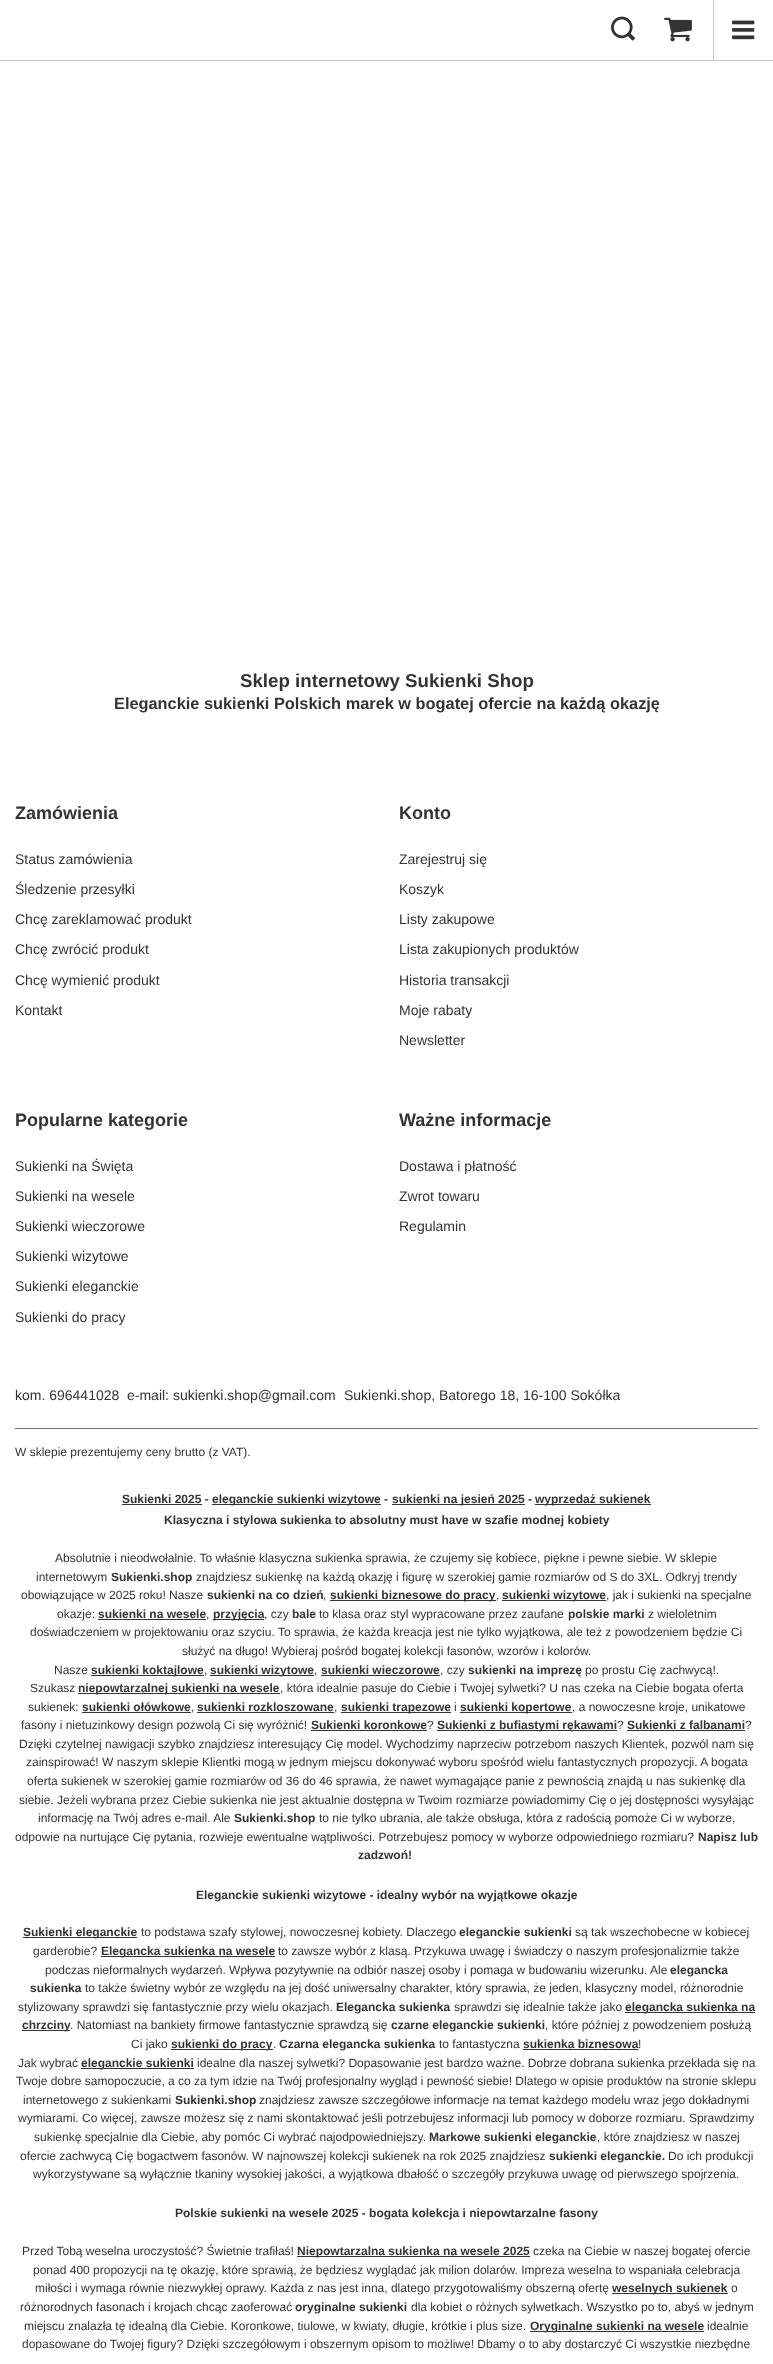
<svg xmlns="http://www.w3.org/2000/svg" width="773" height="2364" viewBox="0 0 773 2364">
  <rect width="100%" height="100%" fill="#ffffff"/>
  <rect x="0" y="60" width="773" height="1" fill="#c4c7c8"/>
  <image x="611" y="16" width="24" height="25" href="img1.png"/>
  <image x="664" y="17" width="28" height="25" href="img2.png"/>
  <rect x="713" y="0" width="1" height="60" fill="#c4c7c8"/>
  <image x="732" y="20" width="23" height="20" href="img3.png"/>
  <text x="240" y="687" font-family="Liberation Sans" font-size="18.7" font-weight="bold" fill="#333333">Sklep internetowy Sukienki Shop</text>
  <text x="114" y="709" font-family="Liberation Sans" font-size="16.35" font-weight="bold" fill="#333333">Eleganckie sukienki Polskich marek w bogatej ofercie na każdą okazję</text>
  <text x="15" y="819" font-family="Liberation Sans" font-size="18" font-weight="bold" fill="#333333">Zamówienia</text>
  <text x="15" y="864" font-family="Liberation Sans" font-size="14" fill="#333333">Status zamówienia</text>
  <text x="15" y="894" font-family="Liberation Sans" font-size="14" fill="#333333">Śledzenie przesyłki</text>
  <text x="15" y="924" font-family="Liberation Sans" font-size="14" fill="#333333">Chcę zareklamować produkt</text>
  <text x="15" y="954" font-family="Liberation Sans" font-size="14" fill="#333333">Chcę zwrócić produkt</text>
  <text x="15" y="985" font-family="Liberation Sans" font-size="14" fill="#333333">Chcę wymienić produkt</text>
  <text x="15" y="1015" font-family="Liberation Sans" font-size="14" fill="#333333">Kontakt</text>
  <text x="399" y="819" font-family="Liberation Sans" font-size="18" font-weight="bold" fill="#333333">Konto</text>
  <text x="399" y="864" font-family="Liberation Sans" font-size="14" fill="#333333">Zarejestruj się</text>
  <text x="399" y="894" font-family="Liberation Sans" font-size="14" fill="#333333">Koszyk</text>
  <text x="399" y="924" font-family="Liberation Sans" font-size="14" fill="#333333">Listy zakupowe</text>
  <text x="399" y="954" font-family="Liberation Sans" font-size="14" fill="#333333">Lista zakupionych produktów</text>
  <text x="399" y="985" font-family="Liberation Sans" font-size="14" fill="#333333">Historia transakcji</text>
  <text x="399" y="1015" font-family="Liberation Sans" font-size="14" fill="#333333">Moje rabaty</text>
  <text x="399" y="1045" font-family="Liberation Sans" font-size="14" fill="#333333">Newsletter</text>
  <text x="15" y="1126" font-family="Liberation Sans" font-size="18" font-weight="bold" fill="#333333">Popularne kategorie</text>
  <text x="15" y="1171" font-family="Liberation Sans" font-size="14" fill="#333333">Sukienki na Święta</text>
  <text x="15" y="1201" font-family="Liberation Sans" font-size="14" fill="#333333">Sukienki na wesele</text>
  <text x="15" y="1231" font-family="Liberation Sans" font-size="14" fill="#333333">Sukienki wieczorowe</text>
  <text x="15" y="1261" font-family="Liberation Sans" font-size="14" fill="#333333">Sukienki wizytowe</text>
  <text x="15" y="1291" font-family="Liberation Sans" font-size="14" fill="#333333">Sukienki eleganckie</text>
  <text x="15" y="1322" font-family="Liberation Sans" font-size="14" fill="#333333">Sukienki do pracy</text>
  <text x="399" y="1126" font-family="Liberation Sans" font-size="18" font-weight="bold" fill="#333333">Ważne informacje</text>
  <text x="399" y="1171" font-family="Liberation Sans" font-size="14" fill="#333333">Dostawa i płatność</text>
  <text x="399" y="1201" font-family="Liberation Sans" font-size="14" fill="#333333">Zwrot towaru</text>
  <text x="399" y="1231" font-family="Liberation Sans" font-size="14" fill="#333333">Regulamin</text>
  <rect x="15" y="1428" width="743" height="1" fill="#6b7785"/>
  <text x="15" y="1400" font-family="Liberation Sans" font-size="14" fill="#333333">kom. 696441028</text>
  <text x="127" y="1400" font-family="Liberation Sans" font-size="14" fill="#333333">e-mail: sukienki.shop@gmail.com</text>
  <text x="344" y="1400" font-family="Liberation Sans" font-size="14" fill="#333333">Sukienki.shop, Batorego 18, 16-100 Sokółka</text>
  <text x="15" y="1456" font-family="Liberation Sans" font-size="12" fill="#333333">W sklepie prezentujemy ceny brutto (z VAT).</text>
  <text x="122" y="1503" font-family="Liberation Sans" font-size="12" font-weight="bold" fill="#333333">Sukienki 2025 -</text>
  <rect x="122" y="1504" width="80" height="1" fill="#333333"/>
  <rect x="212" y="1504" width="169" height="1" fill="#333333"/>
  <text x="212" y="1503" font-family="Liberation Sans" font-size="12" font-weight="bold" fill="#333333">eleganckie sukienki wizytowe -</text>
  <rect x="392" y="1504" width="133" height="1" fill="#333333"/>
  <text x="392" y="1503" font-family="Liberation Sans" font-size="12" font-weight="bold" fill="#333333">sukienki na jesień 2025 -</text>
  <rect x="535" y="1504" width="116" height="1" fill="#333333"/>
  <text x="535" y="1503" font-family="Liberation Sans" font-size="12" font-weight="bold" fill="#333333">wyprzedaż sukienek</text>
  <text x="164" y="1524" font-family="Liberation Sans" font-size="12" font-weight="bold" fill="#333333">Klasyczna i stylowa sukienka to absolutny must have w szafie modnej kobiety</text>
  <text x="55" y="1562" font-family="Liberation Sans" font-size="12" fill="#333333">Absolutnie i nieodwołalnie. To właśnie klasyczna sukienka sprawia, że czujemy się kobiece, piękne i pewne siebie. W sklepie</text>
  <text x="36" y="1581" font-family="Liberation Sans" font-size="12" fill="#333333">internetowym</text>
  <text x="111" y="1581" font-family="Liberation Sans" font-size="12" font-weight="bold" fill="#333333">Sukienki.shop</text>
  <text x="196" y="1581" font-family="Liberation Sans" font-size="12" fill="#333333">znajdziesz sukienkę na każdą okazję i figurę w szerokiej gamie rozmiarów od S do 3XL. Odkryj trendy</text>
  <text x="21" y="1599" font-family="Liberation Sans" font-size="12" fill="#333333">obowiązujące w 2025 roku! Nasze</text>
  <text x="207" y="1599" font-family="Liberation Sans" font-size="12" font-weight="bold" fill="#333333">sukienki na co dzień</text>
  <text x="323" y="1599" font-family="Liberation Sans" font-size="12" fill="#333333">,</text>
  <rect x="330" y="1600" width="166" height="1" fill="#333333"/>
  <text x="330" y="1599" font-family="Liberation Sans" font-size="12" font-weight="bold" fill="#333333">sukienki biznesowe do pracy</text>
  <text x="496" y="1599" font-family="Liberation Sans" font-size="12" fill="#333333">,</text>
  <rect x="502" y="1600" width="104" height="1" fill="#333333"/>
  <text x="502" y="1599" font-family="Liberation Sans" font-size="12" font-weight="bold" fill="#333333">sukienki wizytowe</text>
  <text x="606" y="1599" font-family="Liberation Sans" font-size="12" fill="#333333">, jak i sukienki na specjalne</text>
  <text x="57" y="1618" font-family="Liberation Sans" font-size="12" fill="#333333">okazje:</text>
  <text x="98" y="1618" font-family="Liberation Sans" font-size="12" font-weight="bold" fill="#333333">sukienki na wesele</text>
  <text x="206" y="1618" font-family="Liberation Sans" font-size="12" fill="#333333">,</text>
  <rect x="98" y="1619" width="108" height="1" fill="#333333"/>
  <rect x="213" y="1619" width="51" height="1" fill="#333333"/>
  <text x="213" y="1618" font-family="Liberation Sans" font-size="12" font-weight="bold" fill="#333333">przyjęcia</text>
  <text x="264" y="1618" font-family="Liberation Sans" font-size="12" fill="#333333">, czy</text>
  <text x="292" y="1618" font-family="Liberation Sans" font-size="12" font-weight="bold" fill="#333333">bale</text>
  <text x="319" y="1618" font-family="Liberation Sans" font-size="12" fill="#333333">to klasa oraz styl wypracowane przez zaufane</text>
  <text x="568" y="1618" font-family="Liberation Sans" font-size="12" font-weight="bold" fill="#333333">polskie marki</text>
  <text x="648" y="1618" font-family="Liberation Sans" font-size="12" fill="#333333">z wieloletnim</text>
  <text x="30" y="1636" font-family="Liberation Sans" font-size="12" fill="#333333">doświadczeniem w projektowaniu oraz szyciu. To sprawia, że każda kreacja jest nie tylko wyjątkowa, ale też z powodzeniem będzie Ci</text>
  <text x="182" y="1655" font-family="Liberation Sans" font-size="12" fill="#333333">służyć na długo! Wybieraj pośród bogatej kolekcji fasonów, wzorów i kolorów.</text>
  <text x="54" y="1674" font-family="Liberation Sans" font-size="12" fill="#333333">Nasze</text>
  <rect x="91" y="1675" width="113" height="1" fill="#333333"/>
  <text x="91" y="1674" font-family="Liberation Sans" font-size="12" font-weight="bold" fill="#333333">sukienki koktajlowe</text>
  <text x="204" y="1674" font-family="Liberation Sans" font-size="12" fill="#333333">,</text>
  <rect x="210" y="1675" width="104" height="1" fill="#333333"/>
  <text x="210" y="1674" font-family="Liberation Sans" font-size="12" font-weight="bold" fill="#333333">sukienki wizytowe</text>
  <text x="314" y="1674" font-family="Liberation Sans" font-size="12" fill="#333333">,</text>
  <rect x="321" y="1675" width="119" height="1" fill="#333333"/>
  <text x="321" y="1674" font-family="Liberation Sans" font-size="12" font-weight="bold" fill="#333333">sukienki wieczorowe</text>
  <text x="440" y="1674" font-family="Liberation Sans" font-size="12" fill="#333333">, czy</text>
  <text x="468" y="1674" font-family="Liberation Sans" font-size="12" font-weight="bold" fill="#333333">sukienki na imprezę</text>
  <text x="585" y="1674" font-family="Liberation Sans" font-size="12" fill="#333333">po prostu Cię zachwycą!.</text>
  <text x="30" y="1692" font-family="Liberation Sans" font-size="12" fill="#333333">Szukasz</text>
  <rect x="78" y="1693" width="202" height="1" fill="#333333"/>
  <text x="78" y="1692" font-family="Liberation Sans" font-size="12" font-weight="bold" fill="#333333">niepowtarzalnej sukienki na wesele</text>
  <text x="280" y="1692" font-family="Liberation Sans" font-size="12" fill="#333333">, która idealnie pasuje do Ciebie i Twojej sylwetki? U nas czeka na Ciebie bogata oferta</text>
  <text x="28" y="1711" font-family="Liberation Sans" font-size="12" fill="#333333">sukienek:</text>
  <text x="82" y="1711" font-family="Liberation Sans" font-size="12" font-weight="bold" fill="#333333">sukienki ołówkowe</text>
  <text x="191" y="1711" font-family="Liberation Sans" font-size="12" fill="#333333">,</text>
  <rect x="82" y="1712" width="109" height="1" fill="#333333"/>
  <text x="197" y="1711" font-family="Liberation Sans" font-size="12" font-weight="bold" fill="#333333">sukienki rozkloszowane</text>
  <text x="334" y="1711" font-family="Liberation Sans" font-size="12" fill="#333333">,</text>
  <rect x="197" y="1712" width="137" height="1" fill="#333333"/>
  <rect x="341" y="1712" width="110" height="1" fill="#333333"/>
  <text x="341" y="1711" font-family="Liberation Sans" font-size="12" font-weight="bold" fill="#333333">sukienki trapezowe</text>
  <text x="454" y="1711" font-family="Liberation Sans" font-size="12" fill="#333333">i</text>
  <rect x="460" y="1712" width="112" height="1" fill="#333333"/>
  <text x="460" y="1711" font-family="Liberation Sans" font-size="12" font-weight="bold" fill="#333333">sukienki kopertowe</text>
  <text x="572" y="1711" font-family="Liberation Sans" font-size="12" fill="#333333">, a nowoczesne kroje, unikatowe</text>
  <text x="21" y="1729" font-family="Liberation Sans" font-size="12" fill="#333333">fasony i nietuzinkowy design pozwolą Ci się wyróżnić!</text>
  <text x="311" y="1729" font-family="Liberation Sans" font-size="12" font-weight="bold" fill="#333333">Sukienki koronkowe</text>
  <rect x="311" y="1730" width="116" height="1" fill="#333333"/>
  <text x="427" y="1729" font-family="Liberation Sans" font-size="12" fill="#333333">?</text>
  <rect x="437" y="1730" width="180" height="1" fill="#333333"/>
  <text x="437" y="1729" font-family="Liberation Sans" font-size="12" font-weight="bold" fill="#333333">Sukienki z bufiastymi rękawami</text>
  <text x="617" y="1729" font-family="Liberation Sans" font-size="12" fill="#333333">?</text>
  <text x="627" y="1729" font-family="Liberation Sans" font-size="12" font-weight="bold" fill="#333333">Sukienki z falbanami</text>
  <rect x="627" y="1730" width="118" height="1" fill="#333333"/>
  <text x="745" y="1729" font-family="Liberation Sans" font-size="12" fill="#333333">?</text>
  <text x="19" y="1748" font-family="Liberation Sans" font-size="12" fill="#333333">Dzięki czytelnej nawigacji szybko znajdziesz interesujący Cię model. Wychodzimy naprzeciw potrzebom naszych Klientek, pozwól nam się</text>
  <text x="26" y="1766" font-family="Liberation Sans" font-size="12" fill="#333333">zainspirować! W naszym sklepie Klientki mogą w jednym miejscu dokonywać wyboru spośród wielu fantastycznych propozycji. A bogata</text>
  <text x="27" y="1785" font-family="Liberation Sans" font-size="12" fill="#333333">oferta sukienek w szerokiej gamie rozmiarów od 36 do 46 sprawia, że nawet wymagające panie z pewnością znajdą u nas sukienkę dla</text>
  <text x="19" y="1804" font-family="Liberation Sans" font-size="12" fill="#333333">siebie. Jeżeli wybrana przez Ciebie sukienka nie jest aktualnie dostępna w Twoim rozmiarze powiadomimy Cię o jej dostępności wysyłając</text>
  <text x="38" y="1822" font-family="Liberation Sans" font-size="12" fill="#333333">informację na Twój adres e-mail. Ale</text>
  <text x="234" y="1822" font-family="Liberation Sans" font-size="12" font-weight="bold" fill="#333333">Sukienki.shop</text>
  <text x="319" y="1822" font-family="Liberation Sans" font-size="12" fill="#333333">to nie tylko ubrania, ale także obsługa, która z radością pomoże Ci w wyborze,</text>
  <text x="15" y="1841" font-family="Liberation Sans" font-size="12" fill="#333333">odpowie na nurtujące Cię pytania, rozwieje ewentualne wątpliwości. Potrzebujesz pomocy w wyborze odpowiedniego rozmiaru?</text>
  <text x="698" y="1841" font-family="Liberation Sans" font-size="12" font-weight="bold" fill="#333333">Napisz lub</text>
  <text x="358" y="1859" font-family="Liberation Sans" font-size="12" font-weight="bold" fill="#333333">zadzwoń!</text>
  <text x="196" y="1899" font-family="Liberation Sans" font-size="12" font-weight="bold" fill="#333333">Eleganckie sukienki wizytowe - idealny wybór na wyjątkowe okazje</text>
  <rect x="23" y="1937" width="114" height="1" fill="#333333"/>
  <text x="23" y="1936" font-family="Liberation Sans" font-size="12" font-weight="bold" fill="#333333">Sukienki eleganckie</text>
  <text x="141" y="1936" font-family="Liberation Sans" font-size="12" fill="#333333">to podstawa szafy stylowej, nowoczesnej kobiety. Dlaczego</text>
  <text x="459" y="1936" font-family="Liberation Sans" font-size="12" font-weight="bold" fill="#333333">eleganckie sukienki</text>
  <text x="575" y="1936" font-family="Liberation Sans" font-size="12" fill="#333333">są tak wszechobecne w kobiecej</text>
  <text x="33" y="1955" font-family="Liberation Sans" font-size="12" fill="#333333">garderobie?</text>
  <rect x="101" y="1956" width="174" height="1" fill="#333333"/>
  <text x="101" y="1955" font-family="Liberation Sans" font-size="12" font-weight="bold" fill="#333333">Elegancka sukienka na wesele</text>
  <text x="278" y="1955" font-family="Liberation Sans" font-size="12" fill="#333333">to zawsze wybór z klasą. Przykuwa uwagę i świadczy o naszym profesjonalizmie także</text>
  <text x="45" y="1974" font-family="Liberation Sans" font-size="12" fill="#333333">podczas nieformalnych wydarzeń. Wpływa pozytywnie na odbiór naszej osoby i pomaga w budowaniu wizerunku. Ale</text>
  <text x="670" y="1974" font-family="Liberation Sans" font-size="12" font-weight="bold" fill="#333333">elegancka</text>
  <text x="30" y="1992" font-family="Liberation Sans" font-size="12" font-weight="bold" fill="#333333">sukienka</text>
  <text x="85" y="1992" font-family="Liberation Sans" font-size="12" fill="#333333">to także świetny wybór ze względu na jej dość uniwersalny charakter, który sprawia, że jeden, klasyczny model, różnorodnie</text>
  <text x="18" y="2011" font-family="Liberation Sans" font-size="12" fill="#333333">stylizowany sprawdzi się fantastycznie przy wielu okazjach.</text>
  <text x="336" y="2011" font-family="Liberation Sans" font-size="12" font-weight="bold" fill="#333333">Elegancka sukienka</text>
  <text x="454" y="2011" font-family="Liberation Sans" font-size="12" fill="#333333">sprawdzi się idealnie także jako</text>
  <rect x="625" y="2012" width="130" height="1" fill="#333333"/>
  <text x="625" y="2011" font-family="Liberation Sans" font-size="12" font-weight="bold" fill="#333333">elegancka sukienka na</text>
  <rect x="22" y="2030" width="48" height="1" fill="#333333"/>
  <text x="22" y="2029" font-family="Liberation Sans" font-size="12" font-weight="bold" fill="#333333">chrzciny</text>
  <text x="70" y="2029" font-family="Liberation Sans" font-size="12" fill="#333333">. Natomiast na bankiety firmowe fantastycznie sprawdzą się</text>
  <text x="391" y="2029" font-family="Liberation Sans" font-size="12" font-weight="bold" fill="#333333">czarne eleganckie sukienki</text>
  <text x="545" y="2029" font-family="Liberation Sans" font-size="12" fill="#333333">, które później z powodzeniem posłużą</text>
  <text x="131" y="2048" font-family="Liberation Sans" font-size="12" fill="#333333">Ci jako</text>
  <rect x="171" y="2049" width="102" height="1" fill="#333333"/>
  <text x="171" y="2048" font-family="Liberation Sans" font-size="12" font-weight="bold" fill="#333333">sukienki do pracy</text>
  <text x="273" y="2048" font-family="Liberation Sans" font-size="12" fill="#333333">.</text>
  <text x="279" y="2048" font-family="Liberation Sans" font-size="12" font-weight="bold" fill="#333333">Czarna elegancka sukienka</text>
  <text x="439" y="2048" font-family="Liberation Sans" font-size="12" fill="#333333">to fantastyczna</text>
  <text x="523" y="2048" font-family="Liberation Sans" font-size="12" font-weight="bold" fill="#333333">sukienka biznesowa</text>
  <rect x="523" y="2049" width="115" height="1" fill="#333333"/>
  <text x="638" y="2048" font-family="Liberation Sans" font-size="12" fill="#333333">!</text>
  <text x="18" y="2067" font-family="Liberation Sans" font-size="12" fill="#333333">Jak wybrać</text>
  <rect x="81" y="2068" width="113" height="1" fill="#333333"/>
  <text x="81" y="2067" font-family="Liberation Sans" font-size="12" font-weight="bold" fill="#333333">eleganckie sukienki</text>
  <text x="197" y="2067" font-family="Liberation Sans" font-size="12" fill="#333333">idealne dla naszej sylwetki? Dopasowanie jest bardzo ważne. Dobrze dobrana sukienka przekłada się na</text>
  <text x="16" y="2085" font-family="Liberation Sans" font-size="12" fill="#333333">Twoje dobre samopoczucie, a co za tym idzie na Twój profesjonalny wygląd i pewność siebie! Dlatego w opisie produktów na stronie sklepu</text>
  <text x="23" y="2104" font-family="Liberation Sans" font-size="12" fill="#333333">internetowego z sukienkami</text>
  <text x="175" y="2104" font-family="Liberation Sans" font-size="12" font-weight="bold" fill="#333333">Sukienki.shop</text>
  <text x="259" y="2104" font-family="Liberation Sans" font-size="12" fill="#333333">znajdziesz zawsze szczegółowe informacje na temat każdego modelu wraz jego dokładnymi</text>
  <text x="18" y="2122" font-family="Liberation Sans" font-size="12" fill="#333333">wymiarami. Co więcej, zawsze możesz się z nami skontaktować jeśli potrzebujesz informacji lub pomocy w doborze rozmiaru. Sprawdzimy</text>
  <text x="34" y="2141" font-family="Liberation Sans" font-size="12" fill="#333333">sukienkę specjalnie dla Ciebie, aby pomóc Ci wybrać najodpowiedniejszy.</text>
  <text x="429" y="2141" font-family="Liberation Sans" font-size="12" font-weight="bold" fill="#333333">Markowe sukienki eleganckie</text>
  <text x="597" y="2141" font-family="Liberation Sans" font-size="12" fill="#333333">, które znajdziesz w naszej</text>
  <text x="20" y="2160" font-family="Liberation Sans" font-size="12" fill="#333333">ofercie zachwycą Cię bogactwem fasonów. W najnowszej kolekcji sukienek na rok 2025 znajdziesz</text>
  <text x="549" y="2160" font-family="Liberation Sans" font-size="12" font-weight="bold" fill="#333333">sukienki eleganckie.</text>
  <text x="668" y="2160" font-family="Liberation Sans" font-size="12" fill="#333333">Do ich produkcji</text>
  <text x="33" y="2178" font-family="Liberation Sans" font-size="12" fill="#333333">wykorzystywane są wyłącznie tkaniny wysokiej jakości, a wyjątkowa dbałość o szczegóły przykuwa uwagę od pierwszego spojrzenia.</text>
  <text x="175" y="2217" font-family="Liberation Sans" font-size="12" font-weight="bold" fill="#333333">Polskie sukienki na wesele 2025 - bogata kolekcja i niepowtarzalne fasony</text>
  <text x="22" y="2255" font-family="Liberation Sans" font-size="12" fill="#333333">Przed Tobą weselna uroczystość? Świetnie trafiłaś!</text>
  <rect x="297" y="2256" width="233" height="1" fill="#333333"/>
  <text x="297" y="2255" font-family="Liberation Sans" font-size="12" font-weight="bold" fill="#333333">Niepowtarzalna sukienka na wesele 2025</text>
  <text x="533" y="2255" font-family="Liberation Sans" font-size="12" fill="#333333">czeka na Ciebie w naszej bogatej ofercie</text>
  <text x="33" y="2274" font-family="Liberation Sans" font-size="12" fill="#333333">ponad 400 propozycji na tę okazję, które sprawią, że będziesz wyglądać jak milion dolarów. Impreza weselna to wspaniała celebracja</text>
  <text x="35" y="2292" font-family="Liberation Sans" font-size="12" fill="#333333">miłości i wymaga równie niezwykłej oprawy. Każda z nas jest inna, dlatego przygotowaliśmy obszerną ofertę</text>
  <rect x="612" y="2293" width="116" height="1" fill="#333333"/>
  <text x="612" y="2292" font-family="Liberation Sans" font-size="12" font-weight="bold" fill="#333333">weselnych sukienek</text>
  <text x="731" y="2292" font-family="Liberation Sans" font-size="12" fill="#333333">o</text>
  <text x="20" y="2311" font-family="Liberation Sans" font-size="12" fill="#333333">różnorodnych fasonach i krojach chcąc zaoferować</text>
  <text x="295" y="2311" font-family="Liberation Sans" font-size="12" font-weight="bold" fill="#333333">oryginalne sukienki</text>
  <text x="411" y="2311" font-family="Liberation Sans" font-size="12" fill="#333333">dla kobiet o różnych sylwetkach. Wszystko po to, abyś w jednym</text>
  <text x="24" y="2330" font-family="Liberation Sans" font-size="12" fill="#333333">miejscu znalazła tę idealną dla Ciebie. Koronkowe, tiulowe, w kwiaty, długie, krótkie i plus size.</text>
  <rect x="530" y="2331" width="174" height="1" fill="#333333"/>
  <text x="530" y="2330" font-family="Liberation Sans" font-size="12" font-weight="bold" fill="#333333">Oryginalne sukienki na wesele</text>
  <text x="707" y="2330" font-family="Liberation Sans" font-size="12" fill="#333333">idealnie</text>
  <text x="22" y="2348" font-family="Liberation Sans" font-size="12" fill="#333333">dopasowane do Twojej figury? Dzięki szczegółowym i obszernym opisom to możliwe! Dbamy o to aby dostarczyć Ci wszystkie niezbędne</text>
</svg>
